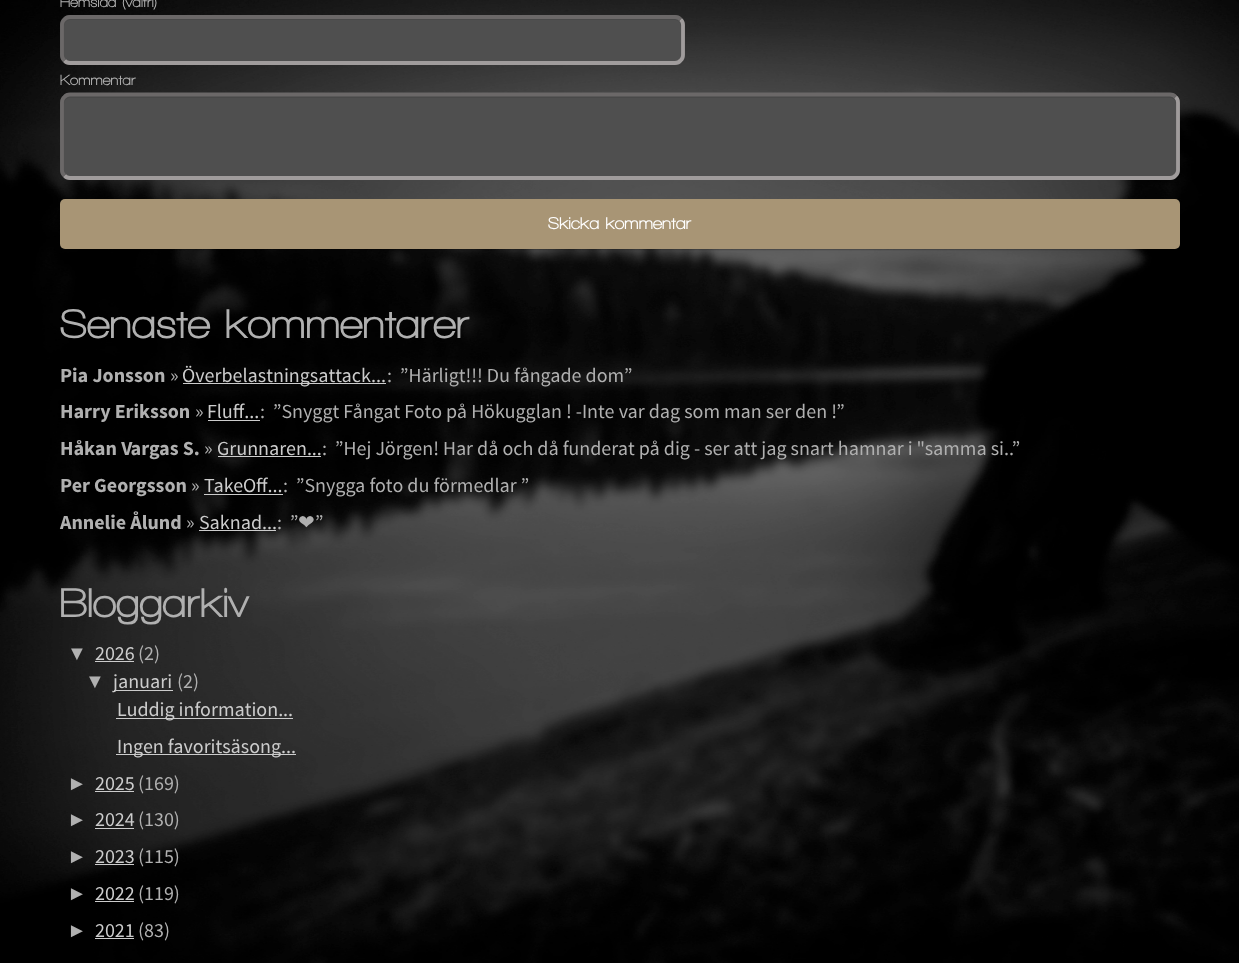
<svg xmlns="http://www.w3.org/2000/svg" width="1239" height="963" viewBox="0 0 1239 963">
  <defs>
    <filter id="blur1" x="-50%" y="-200%" width="200%" height="500%"><feGaussianBlur stdDeviation="1"/></filter>
  </defs>
  <rect width="100%" height="100%" fill="#ffffff"/>
  <image x="0" y="0" width="1239" height="963" href="img1.png"/>
  <text x="60" y="7" font-family="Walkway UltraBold" font-size="15" font-weight="800" fill="#b0b0b0">Hemsida (valfri)</text>
  <rect x="60" y="15" width="625" height="50" rx="10" fill="#4f4f4f"/>
  <path d="M70 20H675C678 20 681 23 681 26C681 22 679 19 675 19H70C66 19 64 22 64 26C64 23 67 20 70 20Z" fill="#494949"/>
  <path d="M680.5 19.5C682.5 21 683 23 683 25V55C683 57 682.5 59 680.5 60.5C679 62.5 677 63 675 63H70C68 63 66 62.5 64.5 60.5" fill="none" stroke="#a09c9c" stroke-width="3.8"/>
  <path d="M64.5 60.5C62.5 59 62 57 62 55V25C62 23 62.5 21 64.5 19.5C66 17.5 68 17 70 17H675C677 17 679 17.5 680.5 19.5" fill="none" stroke="#6b6868" stroke-width="3.8"/>
  <text x="60" y="85" font-family="Walkway UltraBold" font-size="15" font-weight="800" fill="#b0b0b0">Kommentar</text>
  <rect x="60" y="93" width="1120" height="87" rx="10" fill="#4f4f4f"/>
  <path d="M70 98H1170C1173 98 1176 100 1176 104V102C1176 99 1173 96 1170 96H70C67 96 64 99 64 102V104C64 100 67 98 70 98Z" fill="#494949"/>
  <path d="M1175.5 97C1177.5 98.5 1178 100.5 1178 102.5V170C1178 172 1177.5 174 1175.5 175.5C1174 177.5 1172 178 1170 178H70C68 178 66 177.5 64.5 175.5" fill="none" stroke="#a09c9c" stroke-width="3.8"/>
  <path d="M64.5 175.5C62.5 174 62 172 62 170V102.5C62 100.5 62.5 98.5 64.5 97C66 95 68 94.5 70 94.5H1170C1172 94.5 1174 95 1175.5 97" fill="none" stroke="#6b6868" stroke-width="3.8"/>
  <rect x="61" y="201" width="1118" height="48" rx="4" fill="#000000" fill-opacity="0.6" filter="url(#blur1)"/>
  <rect x="60" y="199" width="1120" height="50" rx="5" fill="#a89575"/>
  <text x="548" y="229" font-family="Walkway UltraBold" font-size="17.5" font-weight="800" fill="#ffffff">Skicka kommentar</text>
  <text x="60" y="338" font-family="Walkway UltraBold" font-size="42.5" font-weight="800" fill="#b0b0b0">Senaste kommentarer</text>
  <text x="60" y="382" font-family="Source Sans Pro" font-size="20" font-weight="bold" fill="#b0b0b0">Pia Jonsson</text>
  <text x="170" y="382" font-family="Source Sans Pro" font-size="20" fill="#b0b0b0">»</text>
  <rect x="183" y="383" width="203" height="1" fill="#cccccc"/>
  <text x="182" y="382" font-family="Source Sans Pro" font-size="20" fill="#cccccc">Överbelastningsattack...</text>
  <text x="387" y="382" font-family="Source Sans Pro" font-size="20" fill="#b0b0b0">:</text>
  <text x="400" y="382" font-family="Source Sans Pro" font-size="20" fill="#b0b0b0">”Härligt!!! Du fångade dom”</text>
  <text x="60" y="418" font-family="Source Sans Pro" font-size="20" font-weight="bold" fill="#b0b0b0">Harry Eriksson</text>
  <text x="195" y="418" font-family="Source Sans Pro" font-size="20" fill="#b0b0b0">»</text>
  <text x="207" y="418" font-family="Source Sans Pro" font-size="20" fill="#cccccc">Fluff...</text>
  <rect x="208" y="420" width="52" height="1" fill="#cccccc"/>
  <text x="260" y="418" font-family="Source Sans Pro" font-size="20" fill="#b0b0b0">:</text>
  <text x="273" y="418" font-family="Source Sans Pro" font-size="20" fill="#b0b0b0">”Snyggt Fångat Foto på Hökugglan ! -Inte var dag som man ser den !”</text>
  <text x="60" y="455" font-family="Source Sans Pro" font-size="20" font-weight="bold" fill="#b0b0b0">Håkan Vargas S.</text>
  <text x="204" y="455" font-family="Source Sans Pro" font-size="20" fill="#b0b0b0">»</text>
  <text x="217" y="455" font-family="Source Sans Pro" font-size="20" fill="#cccccc">Grunnaren...</text>
  <rect x="218" y="456" width="103" height="1" fill="#cccccc"/>
  <text x="322" y="455" font-family="Source Sans Pro" font-size="20" fill="#b0b0b0">:</text>
  <text x="335" y="455" font-family="Source Sans Pro" font-size="20" fill="#b0b0b0">”Hej Jörgen! Har då och då funderat på dig - ser att jag snart hamnar i "samma si..”</text>
  <text x="60" y="492" font-family="Source Sans Pro" font-size="20" font-weight="bold" fill="#b0b0b0">Per Georgsson</text>
  <text x="191" y="492" font-family="Source Sans Pro" font-size="20" fill="#b0b0b0">»</text>
  <text x="204" y="492" font-family="Source Sans Pro" font-size="20" fill="#cccccc">TakeOff...</text>
  <rect x="204" y="494" width="79" height="1" fill="#cccccc"/>
  <text x="283" y="492" font-family="Source Sans Pro" font-size="20" fill="#b0b0b0">:</text>
  <text x="296" y="492" font-family="Source Sans Pro" font-size="20" fill="#b0b0b0">”Snygga foto du förmedlar ”</text>
  <text x="60" y="529" font-family="Source Sans Pro" font-size="20" font-weight="bold" fill="#b0b0b0">Annelie Ålund</text>
  <text x="186" y="529" font-family="Source Sans Pro" font-size="20" fill="#b0b0b0">»</text>
  <text x="199" y="529" font-family="Source Sans Pro" font-size="20" fill="#cccccc">Saknad...</text>
  <rect x="199" y="530" width="77" height="1" fill="#cccccc"/>
  <text x="277" y="529" font-family="Source Sans Pro" font-size="20" fill="#b0b0b0">:</text>
  <text x="290" y="529" font-family="Source Sans Pro" font-size="20" fill="#b0b0b0">”</text>
  <text x="298" y="529" font-family="DejaVu Sans" font-size="20" fill="#b0b0b0">❤</text>
  <text x="315" y="529" font-family="Source Sans Pro" font-size="20" fill="#b0b0b0">”</text>
  <text x="60" y="617" font-family="Walkway UltraBold" font-size="42.5" font-weight="800" fill="#b0b0b0">Bloggarkiv</text>
  <text x="67" y="660" font-family="Liberation Sans" font-size="20" fill="#b0b0b0">▼</text>
  <text x="95" y="660" font-family="Source Sans Pro" font-size="20" fill="#cccccc">2026</text>
  <rect x="95" y="661" width="39" height="1" fill="#cccccc"/>
  <text x="138" y="660" font-family="Source Sans Pro" font-size="20" fill="#b0b0b0">(2)</text>
  <text x="85" y="688" font-family="Liberation Sans" font-size="20" fill="#b0b0b0">▼</text>
  <rect x="114" y="690" width="59" height="1" fill="#cccccc"/>
  <text x="113" y="688" font-family="Source Sans Pro" font-size="20" fill="#cccccc">januari</text>
  <text x="177" y="688" font-family="Source Sans Pro" font-size="20" fill="#b0b0b0">(2)</text>
  <rect x="116" y="718" width="177" height="1" fill="#cccccc"/>
  <text x="117" y="716" font-family="Source Sans Pro" font-size="20" fill="#cccccc">Luddig information...</text>
  <rect x="116" y="754" width="180" height="1" fill="#cccccc"/>
  <text x="117" y="753" font-family="Source Sans Pro" font-size="20" fill="#cccccc">Ingen favoritsäsong...</text>
  <text x="67" y="790" font-family="Liberation Sans" font-size="20" fill="#b0b0b0">►</text>
  <text x="95" y="790" font-family="Source Sans Pro" font-size="20" fill="#cccccc">2025</text>
  <rect x="95" y="791" width="39" height="1" fill="#cccccc"/>
  <text x="138" y="790" font-family="Source Sans Pro" font-size="20" fill="#b0b0b0">(169)</text>
  <text x="67" y="826" font-family="Liberation Sans" font-size="20" fill="#b0b0b0">►</text>
  <text x="95" y="826" font-family="Source Sans Pro" font-size="20" fill="#cccccc">2024</text>
  <rect x="95" y="828" width="39" height="1" fill="#cccccc"/>
  <text x="138" y="826" font-family="Source Sans Pro" font-size="20" fill="#b0b0b0">(130)</text>
  <text x="67" y="863" font-family="Liberation Sans" font-size="20" fill="#b0b0b0">►</text>
  <text x="95" y="863" font-family="Source Sans Pro" font-size="20" fill="#cccccc">2023</text>
  <rect x="95" y="864" width="39" height="1" fill="#cccccc"/>
  <text x="138" y="863" font-family="Source Sans Pro" font-size="20" fill="#b0b0b0">(115)</text>
  <text x="67" y="900" font-family="Liberation Sans" font-size="20" fill="#b0b0b0">►</text>
  <text x="95" y="900" font-family="Source Sans Pro" font-size="20" fill="#cccccc">2022</text>
  <rect x="95" y="901" width="39" height="1" fill="#cccccc"/>
  <text x="138" y="900" font-family="Source Sans Pro" font-size="20" fill="#b0b0b0">(119)</text>
  <text x="67" y="937" font-family="Liberation Sans" font-size="20" fill="#b0b0b0">►</text>
  <text x="95" y="937" font-family="Source Sans Pro" font-size="20" fill="#cccccc">2021</text>
  <rect x="95" y="938" width="39" height="1" fill="#cccccc"/>
  <text x="138" y="937" font-family="Source Sans Pro" font-size="20" fill="#b0b0b0">(83)</text>
</svg>
